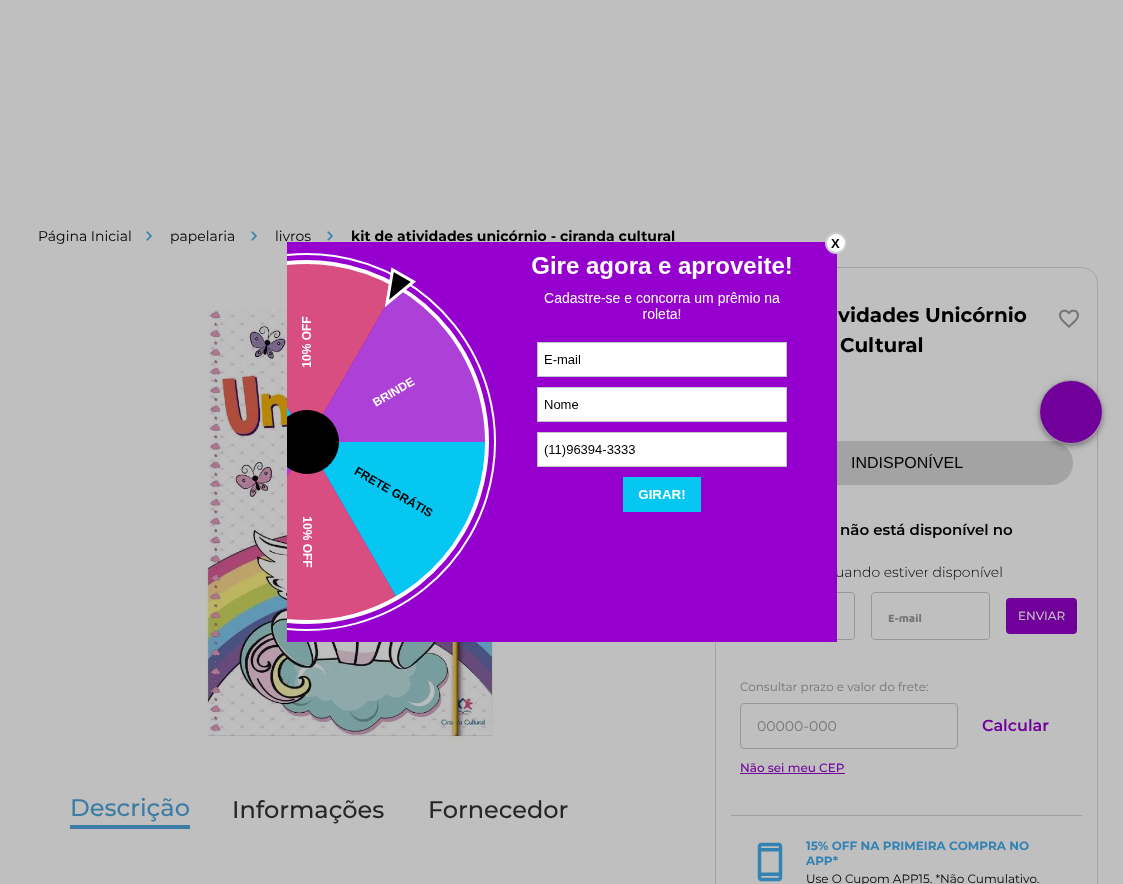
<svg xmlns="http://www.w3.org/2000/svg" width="1123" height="884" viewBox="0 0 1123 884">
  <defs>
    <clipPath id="clip1"><rect x="737" y="593" width="117" height="46" rx="3"/></clipPath>
    <clipPath id="clip2"><rect x="872" y="593" width="117" height="46" rx="3"/></clipPath>
    <filter id="blur1" x="-50%" y="-200%" width="200%" height="500%"><feGaussianBlur stdDeviation="5"/></filter>
    <filter id="blur2" x="-50%" y="-200%" width="200%" height="500%"><feGaussianBlur stdDeviation="2.5"/></filter>
    <filter id="blur3" x="-50%" y="-200%" width="200%" height="500%"><feGaussianBlur stdDeviation="2"/></filter>
  </defs>
  <rect width="100%" height="100%" fill="#bfbfbf"/>
  <text x="38" y="241" font-family="Montserrat" font-size="14" fill="#000000">Página Inicial</text>
  <image x="146" y="231" width="6" height="10" href="img1.png"/>
  <text x="170" y="241" font-family="Montserrat" font-size="14" fill="#000000">papelaria</text>
  <image x="251" y="231" width="6" height="10" href="img1.png"/>
  <text x="275" y="241" font-family="Montserrat" font-size="14" fill="#000000">livros</text>
  <image x="327" y="231" width="6" height="10" href="img1.png"/>
  <text x="351" y="241" font-family="Montserrat" font-size="14" font-weight="bold" fill="#000000">kit de atividades unicórnio - ciranda cultural</text>
  <image x="206" y="307" width="293" height="437" href="img2.png"/>
  <rect x="70" y="825" width="120" height="4" fill="#3b7ca5"/>
  <text x="70" y="816" font-family="Montserrat" font-size="24" font-weight="500" fill="#3b7ca5">Descrição</text>
  <text x="232" y="818" font-family="Montserrat" font-size="24" font-weight="500" fill="#262626">Informações</text>
  <text x="428" y="818" font-family="Montserrat" font-size="24" font-weight="500" fill="#262626">Fornecedor</text>
  <rect x="715.5" y="267.5" width="382" height="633" rx="15.5" fill="none" stroke="#a3a3a3"/>
  <text x="838" y="322" font-family="Montserrat" font-size="20" font-weight="bold" fill="#000000">vidades Unicórnio</text>
  <text x="840" y="352" font-family="Montserrat" font-size="20" font-weight="bold" fill="#000000">Cultural</text>
  <image x="1059" y="309" width="20" height="19" href="img3.png"/>
  <rect x="740" y="441" width="333" height="44" rx="22" fill="#a3a3a3"/>
  <text x="851" y="468" font-family="Liberation Sans" font-size="16" fill="#000000">INDISPONÍVEL</text>
  <text x="840" y="535" font-family="Montserrat" font-size="15" font-weight="600" fill="#000000">não está disponível no</text>
  <text x="835" y="577" font-family="Montserrat" font-size="14" font-weight="300" fill="#000000">uando estiver disponível</text>
  <rect x="736.5" y="592.5" width="118" height="47" rx="3.5" fill="none" stroke="#989898"/>
  <g clip-path="url(#clip1)">
    <rect x="737" y="593" width="117" height="48" rx="4" fill="#bfbfbf"/>
  </g>
  <rect x="871.5" y="592.5" width="118" height="47" rx="3.5" fill="none" stroke="#989898"/>
  <g clip-path="url(#clip2)">
    <rect x="872" y="593" width="117" height="48" rx="4" fill="#bfbfbf"/>
  </g>
  <text x="888" y="622" font-family="'Baloo 2'" font-size="12" font-weight="bold" fill="#747474">E-mail</text>
  <rect x="1006" y="598" width="71" height="36" rx="4" fill="#71009b"/>
  <text x="1018" y="620" font-family="Montserrat" font-size="12" font-weight="500" fill="#bfbfbf">ENVIAR</text>
  <text x="740" y="691" font-family="Montserrat" font-size="12" fill="#747474">Consultar prazo e valor do frete:</text>
  <rect x="740.5" y="703.5" width="217" height="45" rx="3.5" fill="none" stroke="#989898"/>
  <text x="757" y="731" font-family="Montserrat" font-size="14" fill="#747474">00000-000</text>
  <text x="982" y="731" font-family="Montserrat" font-size="16" font-weight="600" fill="#71009b">Calcular</text>
  <text x="740" y="772" font-family="Montserrat" font-size="12" font-weight="500" fill="#71009b">Não sei meu CEP</text>
  <rect x="740" y="773" width="105" height="1" fill="#71009b"/>
  <rect x="731" y="815" width="351" height="1" fill="#a1a1a1"/>
  <image x="757" y="842" width="26" height="40" href="img4.png"/>
  <text x="806" y="850" font-family="Montserrat" font-size="12" font-weight="bold" fill="#3283b3">15% OFF NA PRIMEIRA COMPRA NO</text>
  <text x="806" y="865" font-family="Montserrat" font-size="12" font-weight="bold" fill="#3283b3">APP*</text>
  <text x="806" y="883" font-family="Montserrat" font-size="12" fill="#000000">Use O Cupom APP15. *Não Cumulativo.</text>
  <image x="287" y="242" width="550" height="400" href="img5.png"/>
  <circle cx="836" cy="243" r="10" fill="#ffffff" stroke="#cccccc" stroke-width="2"/>
  <text x="831" y="248" font-family="Liberation Sans" font-size="13" font-weight="bold" fill="#000000">X</text>
  <rect x="1039" y="381" width="64" height="64" rx="32" fill="#000000" fill-opacity="0.12" filter="url(#blur1)"/>
  <rect x="1039" y="384" width="64" height="64" rx="32" fill="#000000" fill-opacity="0.14" filter="url(#blur2)"/>
  <rect x="1040" y="383" width="62" height="62" rx="31" fill="#000000" fill-opacity="0.2" filter="url(#blur3)"/>
  <circle cx="1071" cy="412" r="32" fill="#bfbfbf"/>
  <circle cx="1071" cy="412" r="31.5" fill="none" stroke="#000000" stroke-opacity="0.2"/>
  <circle cx="1071" cy="412" r="31" fill="#71009b"/>
</svg>
